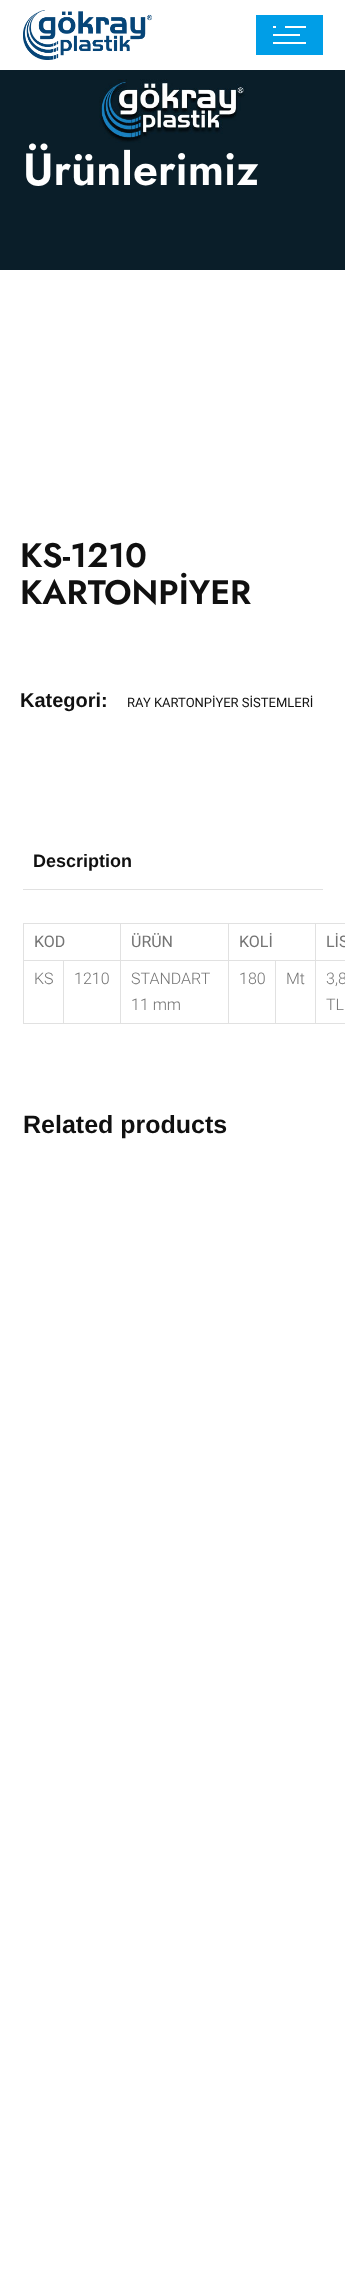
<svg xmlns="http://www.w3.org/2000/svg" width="345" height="2276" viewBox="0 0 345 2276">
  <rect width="100%" height="100%" fill="#ffffff"/>
  <image x="23" y="10" width="129" height="50" href="img1.png"/>
  <rect x="256" y="15" width="67" height="40" fill="#009ee7"/>
  <rect x="273" y="26" width="3" height="2" fill="#ffffff"/>
  <rect x="285" y="26" width="21" height="2" fill="#ffffff"/>
  <rect x="273" y="34" width="27" height="2" fill="#ffffff"/>
  <rect x="273" y="42" width="33" height="2" fill="#ffffff"/>
  <image x="0" y="70" width="345" height="200" href="img2.png"/>
  <text x="23" y="185" font-family="Jost" font-size="45" font-weight="600" fill="#ffffff">Ürünlerimiz</text>
  <text x="20" y="567" font-family="Jost" font-size="34" font-weight="600" fill="#101010">KS-1210</text>
  <text x="20" y="604" font-family="Jost" font-size="34" font-weight="600" fill="#101010">KARTONPİYER</text>
  <text x="20" y="707" font-family="Liberation Sans" font-size="20" font-weight="bold" fill="#101010">Kategori:</text>
  <text x="127" y="707" font-family="Roboto" font-size="13" fill="#101010">RAY KARTONPİYER SİSTEMLERİ</text>
  <rect x="23" y="889" width="300" height="1" fill="#e1e1e1"/>
  <text x="33" y="867" font-family="Liberation Sans" font-size="18" font-weight="bold" fill="#101010">Description</text>
  <rect x="23" y="923" width="322" height="1" fill="#e1e1e1"/>
  <rect x="23" y="960" width="322" height="1" fill="#e1e1e1"/>
  <rect x="23" y="1023" width="322" height="1" fill="#e1e1e1"/>
  <rect x="23" y="960" width="1" height="64" fill="#e1e1e1"/>
  <rect x="23" y="923" width="1" height="38" fill="#e1e1e1"/>
  <text x="34" y="947" font-family="Roboto" font-size="16" fill="#747474">KOD</text>
  <text x="131" y="947" font-family="Roboto" font-size="16" fill="#747474">ÜRÜN</text>
  <text x="239" y="947" font-family="Roboto" font-size="16" fill="#747474">KOLİ</text>
  <text x="326" y="947" font-family="Roboto" font-size="16" fill="#747474">LİS</text>
  <rect x="63" y="960" width="1" height="64" fill="#e1e1e1"/>
  <text x="34" y="984" font-family="Roboto" font-size="16" font-weight="300" fill="#747474">KS</text>
  <rect x="120" y="923" width="1" height="101" fill="#e1e1e1"/>
  <text x="74" y="984" font-family="Roboto" font-size="16" font-weight="300" fill="#747474">1210</text>
  <rect x="228" y="923" width="1" height="101" fill="#e1e1e1"/>
  <text x="131" y="984" font-family="Roboto" font-size="16" font-weight="300" fill="#747474">STANDART</text>
  <text x="131" y="1010" font-family="Roboto" font-size="16" font-weight="300" fill="#747474">11 mm</text>
  <rect x="275" y="960" width="1" height="64" fill="#e1e1e1"/>
  <text x="239" y="984" font-family="Roboto" font-size="16" font-weight="300" fill="#747474">180</text>
  <rect x="315" y="923" width="1" height="101" fill="#e1e1e1"/>
  <text x="286" y="984" font-family="Roboto" font-size="16" font-weight="300" fill="#747474">Mt</text>
  <text x="326" y="984" font-family="Roboto" font-size="16" font-weight="300" fill="#747474">3,8</text>
  <text x="326" y="1010" font-family="Roboto" font-size="16" font-weight="300" fill="#747474">TL</text>
  <text x="23" y="1133" font-family="Liberation Sans" font-size="25" font-weight="bold" fill="#101010">Related products</text>
</svg>
